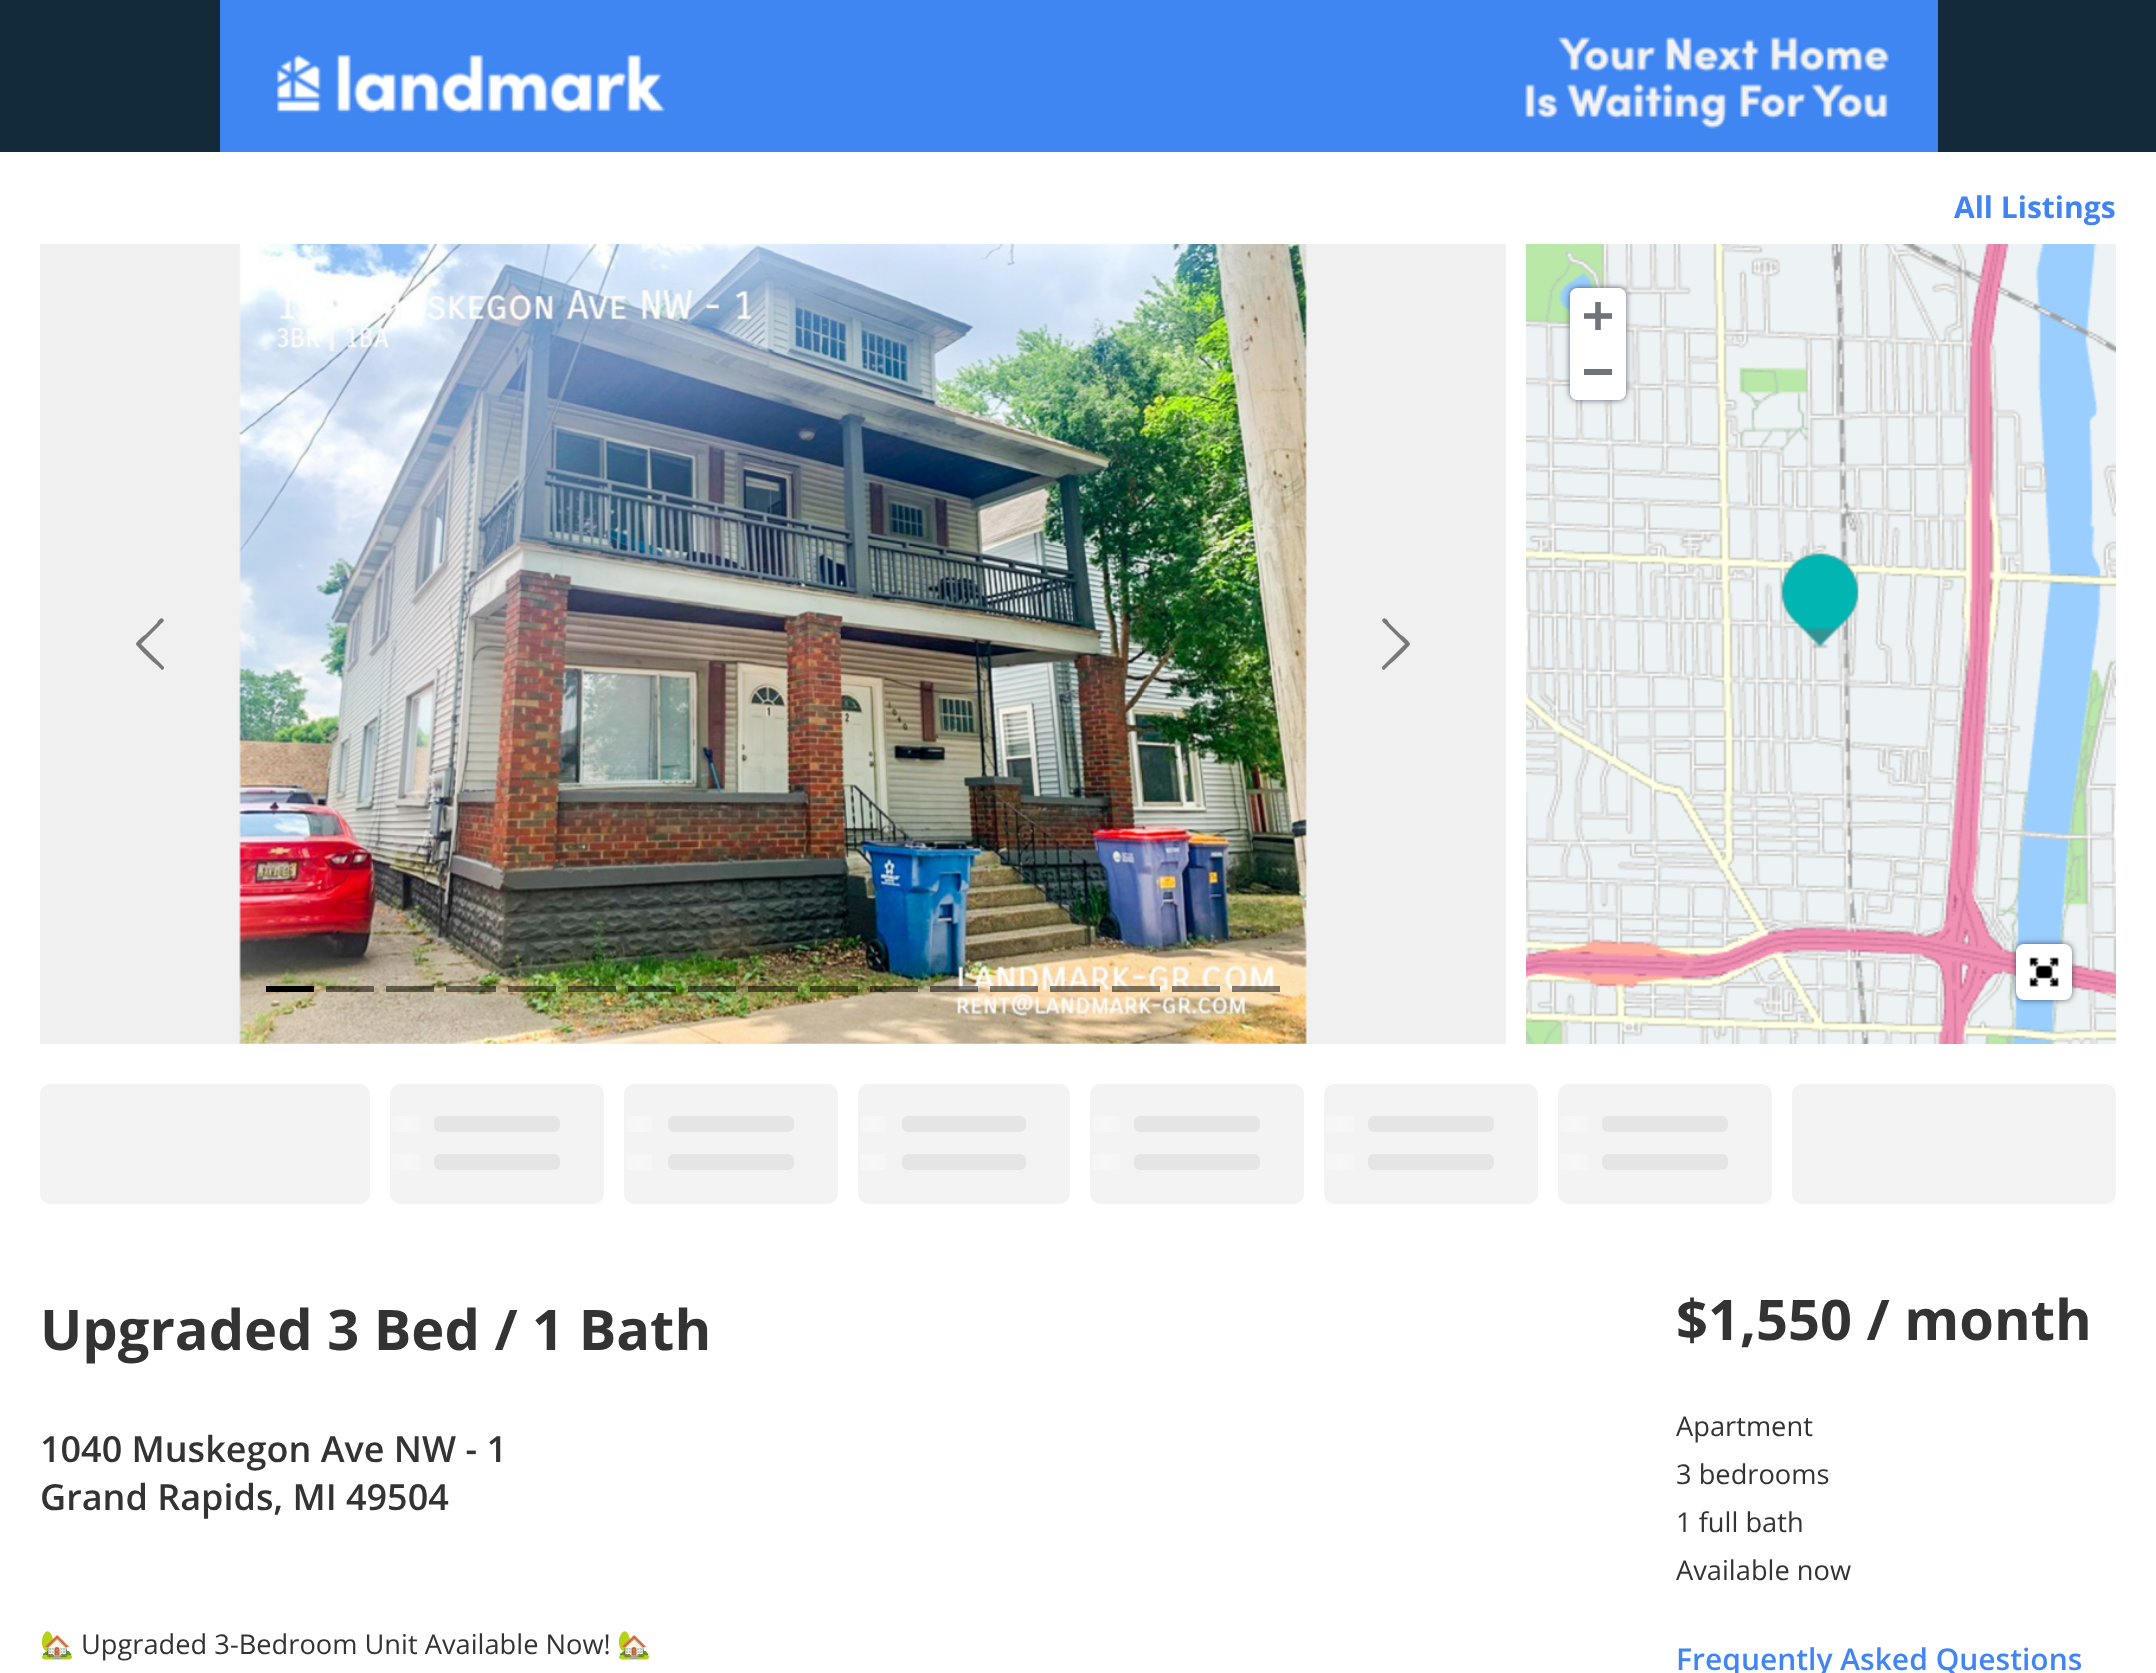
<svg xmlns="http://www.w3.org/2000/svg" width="2156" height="1673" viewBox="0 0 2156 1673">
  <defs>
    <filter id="blur1" x="-50%" y="-200%" width="200%" height="500%"><feGaussianBlur stdDeviation="3"/></filter>
    <linearGradient id="g1" gradientUnits="userSpaceOnUse" x1="434" y1="1124" x2="378" y2="1124"><stop offset="0" stop-color="#fbfbfb" stop-opacity="0.05"/><stop offset="0.25" stop-color="#fbfbfb" stop-opacity="0.3"/><stop offset="0.5" stop-color="#fbfbfb" stop-opacity="0.6"/><stop offset="0.75" stop-color="#fbfbfb" stop-opacity="0.3"/><stop offset="1" stop-color="#fbfbfb" stop-opacity="0.05"/></linearGradient>
    <linearGradient id="g2" gradientUnits="userSpaceOnUse" x1="434" y1="1162" x2="378" y2="1162"><stop offset="0" stop-color="#fbfbfb" stop-opacity="0.05"/><stop offset="0.25" stop-color="#fbfbfb" stop-opacity="0.3"/><stop offset="0.5" stop-color="#fbfbfb" stop-opacity="0.6"/><stop offset="0.75" stop-color="#fbfbfb" stop-opacity="0.3"/><stop offset="1" stop-color="#fbfbfb" stop-opacity="0.05"/></linearGradient>
    <linearGradient id="g3" gradientUnits="userSpaceOnUse" x1="668" y1="1124" x2="610" y2="1124"><stop offset="0" stop-color="#fbfbfb" stop-opacity="0.05"/><stop offset="0.25" stop-color="#fbfbfb" stop-opacity="0.3"/><stop offset="0.5" stop-color="#fbfbfb" stop-opacity="0.6"/><stop offset="0.75" stop-color="#fbfbfb" stop-opacity="0.3"/><stop offset="1" stop-color="#fbfbfb" stop-opacity="0.05"/></linearGradient>
    <linearGradient id="g4" gradientUnits="userSpaceOnUse" x1="668" y1="1162" x2="610" y2="1162"><stop offset="0" stop-color="#fbfbfb" stop-opacity="0.05"/><stop offset="0.25" stop-color="#fbfbfb" stop-opacity="0.3"/><stop offset="0.5" stop-color="#fbfbfb" stop-opacity="0.6"/><stop offset="0.75" stop-color="#fbfbfb" stop-opacity="0.3"/><stop offset="1" stop-color="#fbfbfb" stop-opacity="0.05"/></linearGradient>
    <linearGradient id="g5" gradientUnits="userSpaceOnUse" x1="902" y1="1124" x2="844" y2="1124"><stop offset="0" stop-color="#fbfbfb" stop-opacity="0.05"/><stop offset="0.25" stop-color="#fbfbfb" stop-opacity="0.3"/><stop offset="0.5" stop-color="#fbfbfb" stop-opacity="0.6"/><stop offset="0.75" stop-color="#fbfbfb" stop-opacity="0.3"/><stop offset="1" stop-color="#fbfbfb" stop-opacity="0.05"/></linearGradient>
    <linearGradient id="g6" gradientUnits="userSpaceOnUse" x1="902" y1="1162" x2="844" y2="1162"><stop offset="0" stop-color="#fbfbfb" stop-opacity="0.05"/><stop offset="0.25" stop-color="#fbfbfb" stop-opacity="0.3"/><stop offset="0.5" stop-color="#fbfbfb" stop-opacity="0.6"/><stop offset="0.75" stop-color="#fbfbfb" stop-opacity="0.3"/><stop offset="1" stop-color="#fbfbfb" stop-opacity="0.05"/></linearGradient>
    <linearGradient id="g7" gradientUnits="userSpaceOnUse" x1="1134" y1="1124" x2="1078" y2="1124"><stop offset="0" stop-color="#fbfbfb" stop-opacity="0.05"/><stop offset="0.25" stop-color="#fbfbfb" stop-opacity="0.3"/><stop offset="0.5" stop-color="#fbfbfb" stop-opacity="0.6"/><stop offset="0.75" stop-color="#fbfbfb" stop-opacity="0.3"/><stop offset="1" stop-color="#fbfbfb" stop-opacity="0.05"/></linearGradient>
    <linearGradient id="g8" gradientUnits="userSpaceOnUse" x1="1134" y1="1162" x2="1078" y2="1162"><stop offset="0" stop-color="#fbfbfb" stop-opacity="0.05"/><stop offset="0.25" stop-color="#fbfbfb" stop-opacity="0.3"/><stop offset="0.5" stop-color="#fbfbfb" stop-opacity="0.6"/><stop offset="0.75" stop-color="#fbfbfb" stop-opacity="0.3"/><stop offset="1" stop-color="#fbfbfb" stop-opacity="0.05"/></linearGradient>
    <linearGradient id="g9" gradientUnits="userSpaceOnUse" x1="1368" y1="1124" x2="1312" y2="1124"><stop offset="0" stop-color="#fbfbfb" stop-opacity="0.05"/><stop offset="0.25" stop-color="#fbfbfb" stop-opacity="0.3"/><stop offset="0.5" stop-color="#fbfbfb" stop-opacity="0.6"/><stop offset="0.75" stop-color="#fbfbfb" stop-opacity="0.3"/><stop offset="1" stop-color="#fbfbfb" stop-opacity="0.05"/></linearGradient>
    <linearGradient id="g10" gradientUnits="userSpaceOnUse" x1="1368" y1="1162" x2="1312" y2="1162"><stop offset="0" stop-color="#fbfbfb" stop-opacity="0.05"/><stop offset="0.25" stop-color="#fbfbfb" stop-opacity="0.3"/><stop offset="0.5" stop-color="#fbfbfb" stop-opacity="0.6"/><stop offset="0.75" stop-color="#fbfbfb" stop-opacity="0.3"/><stop offset="1" stop-color="#fbfbfb" stop-opacity="0.05"/></linearGradient>
    <linearGradient id="g11" gradientUnits="userSpaceOnUse" x1="1602" y1="1124" x2="1546" y2="1124"><stop offset="0" stop-color="#fbfbfb" stop-opacity="0.05"/><stop offset="0.25" stop-color="#fbfbfb" stop-opacity="0.3"/><stop offset="0.5" stop-color="#fbfbfb" stop-opacity="0.6"/><stop offset="0.75" stop-color="#fbfbfb" stop-opacity="0.3"/><stop offset="1" stop-color="#fbfbfb" stop-opacity="0.05"/></linearGradient>
    <linearGradient id="g12" gradientUnits="userSpaceOnUse" x1="1602" y1="1162" x2="1546" y2="1162"><stop offset="0" stop-color="#fbfbfb" stop-opacity="0.05"/><stop offset="0.25" stop-color="#fbfbfb" stop-opacity="0.3"/><stop offset="0.5" stop-color="#fbfbfb" stop-opacity="0.6"/><stop offset="0.75" stop-color="#fbfbfb" stop-opacity="0.3"/><stop offset="1" stop-color="#fbfbfb" stop-opacity="0.05"/></linearGradient>
  </defs>
  <rect width="100%" height="100%" fill="#ffffff"/>
  <rect x="0" y="0" width="2156" height="152" fill="#132a3b"/>
  <image x="220" y="0" width="1718" height="152" href="img1.png"/>
  <text x="1954" y="218" font-family="Open Sans" font-size="30" font-weight="bold" fill="#4185f3">All Listings</text>
  <rect x="40" y="244" width="1466" height="800" fill="#f0f0f0"/>
  <path d="M163 619C166 621 160 624 160 625L141 644L164 667C164 669 163 670 162 670L157 665C154 663 136 646 136 644C136 642 143 636 145 635L157 623C157 622 161 616 163 619Z" fill="#787878"/>
  <image x="239" y="244" width="1068" height="800" href="img2.png"/>
  <path d="M1383 619C1385 616 1389 622 1389 623L1401 635C1403 636 1410 642 1410 644C1410 646 1392 663 1389 665L1384 670C1383 670 1382 669 1382 667L1405 644L1386 625C1386 624 1380 621 1383 619Z" fill="#787878"/>
  <rect x="266" y="986" width="48" height="6" fill="#000000"/>
  <rect x="326" y="986" width="48" height="6" fill="#000000" fill-opacity="0.5"/>
  <rect x="386" y="986" width="48" height="6" fill="#000000" fill-opacity="0.5"/>
  <rect x="446" y="986" width="50" height="6" fill="#000000" fill-opacity="0.5"/>
  <rect x="508" y="986" width="48" height="6" fill="#000000" fill-opacity="0.5"/>
  <rect x="568" y="986" width="48" height="6" fill="#000000" fill-opacity="0.5"/>
  <rect x="628" y="986" width="48" height="6" fill="#000000" fill-opacity="0.5"/>
  <rect x="688" y="986" width="48" height="6" fill="#000000" fill-opacity="0.5"/>
  <rect x="748" y="986" width="50" height="6" fill="#000000" fill-opacity="0.5"/>
  <rect x="810" y="986" width="48" height="6" fill="#000000" fill-opacity="0.5"/>
  <rect x="870" y="986" width="48" height="6" fill="#000000" fill-opacity="0.5"/>
  <rect x="930" y="986" width="48" height="6" fill="#000000" fill-opacity="0.5"/>
  <rect x="990" y="986" width="48" height="6" fill="#000000" fill-opacity="0.5"/>
  <rect x="1050" y="986" width="50" height="6" fill="#000000" fill-opacity="0.5"/>
  <rect x="1112" y="986" width="48" height="6" fill="#000000" fill-opacity="0.5"/>
  <rect x="1172" y="986" width="48" height="6" fill="#000000" fill-opacity="0.5"/>
  <rect x="1232" y="986" width="48" height="6" fill="#000000" fill-opacity="0.5"/>
  <image x="1526" y="244" width="590" height="800" href="img3.png"/>
  <rect x="1570" y="288" width="56" height="112" rx="8" fill="#0f1621" fill-opacity="0.6" filter="url(#blur1)"/>
  <rect x="1570" y="288" width="56" height="112" rx="8" fill="#ffffff"/>
  <rect x="1570" y="288" width="56" height="56" rx="8" fill="#ffffff"/>
  <image x="1584" y="302" width="28" height="28" href="img4.png"/>
  <rect x="1570" y="344" width="56" height="56" rx="8" fill="#ffffff"/>
  <rect x="1584" y="369" width="28" height="6" fill="#6f737a"/>
  <rect x="2016" y="944" width="56" height="56" rx="8" fill="#0f1621" fill-opacity="0.6" filter="url(#blur1)"/>
  <rect x="2016" y="944" width="56" height="56" rx="8" fill="#ffffff"/>
  <image x="2029" y="957" width="30" height="30" href="img5.png"/>
  <rect x="40" y="1084" width="330" height="120" rx="10" fill="#f3f3f3"/>
  <rect x="390" y="1084" width="214" height="120" rx="10" fill="#f3f3f3"/>
  <rect x="434" y="1116" width="126" height="16" rx="6" fill="#e6e5e5"/>
  <rect x="392" y="1116" width="28" height="16" fill="url(#g1)"/>
  <rect x="434" y="1154" width="126" height="16" rx="6" fill="#e6e5e5"/>
  <rect x="392" y="1154" width="28" height="16" fill="url(#g2)"/>
  <rect x="624" y="1084" width="214" height="120" rx="10" fill="#f3f3f3"/>
  <rect x="668" y="1116" width="126" height="16" rx="6" fill="#e6e5e5"/>
  <rect x="626" y="1116" width="26" height="16" fill="url(#g3)"/>
  <rect x="668" y="1154" width="126" height="16" rx="6" fill="#e6e5e5"/>
  <rect x="626" y="1154" width="26" height="16" fill="url(#g4)"/>
  <rect x="858" y="1084" width="212" height="120" rx="10" fill="#f3f3f3"/>
  <rect x="902" y="1116" width="124" height="16" rx="6" fill="#e6e5e5"/>
  <rect x="860" y="1116" width="26" height="16" fill="url(#g5)"/>
  <rect x="902" y="1154" width="124" height="16" rx="6" fill="#e6e5e5"/>
  <rect x="860" y="1154" width="26" height="16" fill="url(#g6)"/>
  <rect x="1090" y="1084" width="214" height="120" rx="10" fill="#f3f3f3"/>
  <rect x="1134" y="1116" width="126" height="16" rx="6" fill="#e6e5e5"/>
  <rect x="1092" y="1116" width="28" height="16" fill="url(#g7)"/>
  <rect x="1134" y="1154" width="126" height="16" rx="6" fill="#e6e5e5"/>
  <rect x="1092" y="1154" width="28" height="16" fill="url(#g8)"/>
  <rect x="1324" y="1084" width="214" height="120" rx="10" fill="#f3f3f3"/>
  <rect x="1368" y="1116" width="126" height="16" rx="6" fill="#e6e5e5"/>
  <rect x="1326" y="1116" width="28" height="16" fill="url(#g9)"/>
  <rect x="1368" y="1154" width="126" height="16" rx="6" fill="#e6e5e5"/>
  <rect x="1326" y="1154" width="28" height="16" fill="url(#g10)"/>
  <rect x="1558" y="1084" width="214" height="120" rx="10" fill="#f3f3f3"/>
  <rect x="1602" y="1116" width="126" height="16" rx="6" fill="#e6e5e5"/>
  <rect x="1560" y="1116" width="28" height="16" fill="url(#g11)"/>
  <rect x="1602" y="1154" width="126" height="16" rx="6" fill="#e6e5e5"/>
  <rect x="1560" y="1154" width="28" height="16" fill="url(#g12)"/>
  <rect x="1792" y="1084" width="324" height="120" rx="10" fill="#f3f3f3"/>
  <text x="40" y="1350" font-family="Open Sans" font-size="56" font-weight="bold" fill="#333333">Upgraded 3 Bed / 1 Bath</text>
  <text x="40" y="1462" font-family="Open Sans" font-size="36" font-weight="600" fill="#333333">1040 Muskegon Ave NW - 1</text>
  <text x="40" y="1510" font-family="Open Sans" font-size="36" font-weight="600" fill="#333333">Grand Rapids, MI 49504</text>
  <text x="40" y="1654" font-family="Noto Color Emoji" font-size="27.25" fill="#333333">🏡</text>
  <text x="81" y="1654" font-family="Open Sans" font-size="27.25" fill="#333333">Upgraded 3-Bedroom Unit Available Now!</text>
  <text x="617" y="1654" font-family="Noto Color Emoji" font-size="27.25" fill="#333333">🏡</text>
  <text x="1676" y="1340" font-family="Open Sans" font-size="56" font-weight="bold" fill="#333333">$1,550 / month</text>
  <text x="1676" y="1436" font-family="Open Sans" font-size="27.25" fill="#333333">Apartment</text>
  <text x="1676" y="1484" font-family="Open Sans" font-size="27.25" fill="#333333">3 bedrooms</text>
  <text x="1676" y="1532" font-family="Open Sans" font-size="27.25" fill="#333333">1 full bath</text>
  <text x="1676" y="1580" font-family="Open Sans" font-size="27.25" fill="#333333">Available now</text>
  <text x="1676" y="1670" font-family="Open Sans" font-size="30" font-weight="600" fill="#4185f3">Frequently Asked Questions</text>
</svg>
